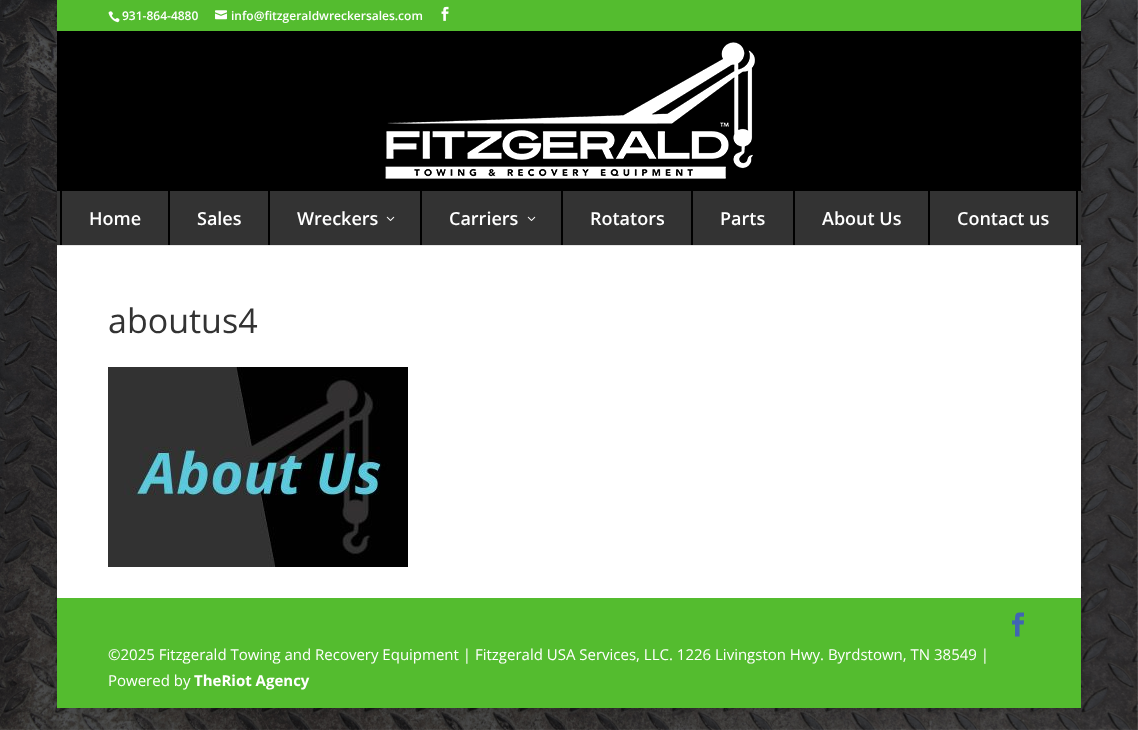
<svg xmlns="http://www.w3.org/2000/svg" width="1138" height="730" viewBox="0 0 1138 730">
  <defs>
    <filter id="blur1" x="-50%" y="-200%" width="200%" height="500%"><feGaussianBlur stdDeviation="5"/></filter>
  </defs>
  <rect width="100%" height="100%" fill="#ffffff"/>
  <image x="0" y="0" width="1138" height="730" href="img1.png"/>
  <rect x="57" y="0" width="1024" height="708" fill="#000000" fill-opacity="0.2" filter="url(#blur1)"/>
  <rect x="57" y="0" width="1024" height="31" fill="#54bc2f"/>
  <image x="108" y="11" width="12" height="12" href="img2.png"/>
  <text x="122" y="20" font-family="Open Sans" font-size="12" font-weight="600" fill="#ffffff">931-864-4880</text>
  <image x="215" y="10" width="12" height="10" href="img3.png"/>
  <text x="231" y="20" font-family="Open Sans" font-size="12" font-weight="600" fill="#ffffff">info@fitzgeraldwreckersales.com</text>
  <image x="441" y="6" width="8" height="15" href="img4.png"/>
  <rect x="57" y="245" width="1024" height="1" fill="#e6e6e6"/>
  <rect x="57" y="31" width="1024" height="160" fill="#000000"/>
  <image x="385" y="42" width="370" height="137" href="img5.png"/>
  <rect x="57" y="191" width="1024" height="54" fill="#333333"/>
  <rect x="60" y="191" width="2" height="54" fill="#000000"/>
  <text x="89" y="225" font-family="Open Sans" font-size="18" font-weight="600" fill="#ffffff">Home</text>
  <rect x="168" y="191" width="2" height="54" fill="#000000"/>
  <text x="197" y="225" font-family="Open Sans" font-size="18" font-weight="600" fill="#ffffff">Sales</text>
  <rect x="268" y="191" width="2" height="54" fill="#000000"/>
  <text x="297" y="225" font-family="Open Sans" font-size="18" font-weight="600" fill="#ffffff">Wreckers</text>
  <image x="386" y="216" width="9" height="5" href="img6.png"/>
  <rect x="420" y="191" width="2" height="54" fill="#000000"/>
  <text x="449" y="225" font-family="Open Sans" font-size="18" font-weight="600" fill="#ffffff">Carriers</text>
  <image x="527" y="216" width="9" height="5" href="img6.png"/>
  <rect x="561" y="191" width="2" height="54" fill="#000000"/>
  <text x="590" y="225" font-family="Open Sans" font-size="18" font-weight="600" fill="#ffffff">Rotators</text>
  <rect x="691" y="191" width="2" height="54" fill="#000000"/>
  <text x="720" y="225" font-family="Open Sans" font-size="18" font-weight="600" fill="#ffffff">Parts</text>
  <rect x="793" y="191" width="2" height="54" fill="#000000"/>
  <text x="822" y="225" font-family="Open Sans" font-size="18" font-weight="600" fill="#ffffff">About Us</text>
  <rect x="1076" y="191" width="2" height="54" fill="#000000"/>
  <rect x="928" y="191" width="2" height="54" fill="#000000"/>
  <text x="957" y="225" font-family="Open Sans" font-size="18" font-weight="600" fill="#ffffff">Contact us</text>
  <rect x="57" y="246" width="1024" height="352" fill="#ffffff"/>
  <text x="108" y="333" font-family="Open Sans" font-size="34" fill="#333333">aboutus4</text>
  <image x="108" y="367" width="300" height="200" href="img7.png"/>
  <rect x="57" y="598" width="1024" height="110" fill="#54bc2f"/>
  <image x="1012" y="612" width="12" height="25" href="img8.png"/>
  <text x="108" y="660" font-family="Open Sans" font-size="15" fill="#ffffff">©2025 Fitzgerald Towing and Recovery Equipment | Fitzgerald USA Services, LLC. 1226 Livingston Hwy. Byrdstown, TN 38549 |</text>
  <text x="108" y="686" font-family="Open Sans" font-size="15" fill="#ffffff">Powered by</text>
  <text x="194" y="686" font-family="Open Sans" font-size="15" font-weight="bold" fill="#ffffff">TheRiot Agency</text>
</svg>
